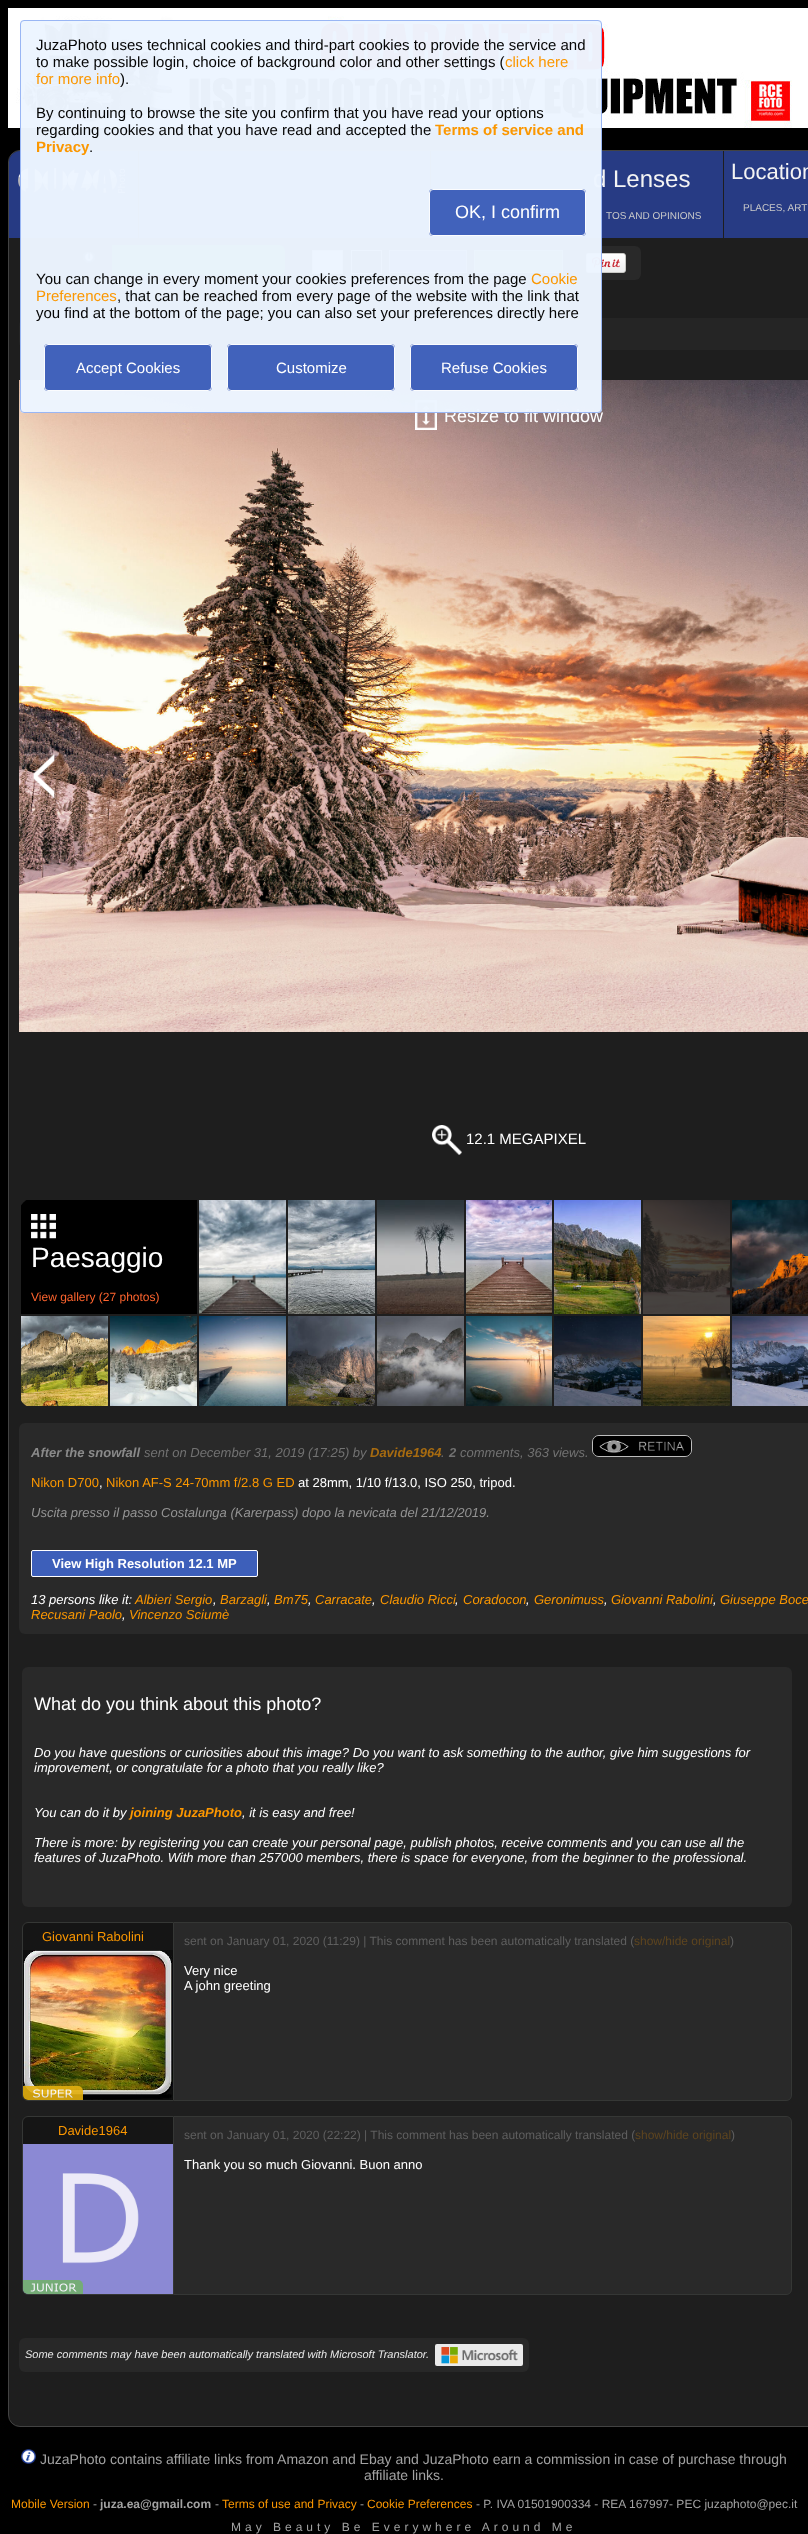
<svg xmlns="http://www.w3.org/2000/svg" width="808" height="2534" viewBox="0 0 808 2534">
  <defs>
    <clipPath id="clip1"><rect x="19" y="1198" width="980" height="210" rx="15"/></clipPath>
  </defs>
  <rect width="100%" height="100%" fill="#000000"/>
  <image x="8" y="8" width="800" height="120" href="img1.png"/>
  <rect x="8.5" y="150.5" width="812" height="2276" rx="11.5" fill="#1e1e1e" stroke="#424242"/>
  <path d="M20 151H138V238H9V162C9 156 14 151 20 151Z" fill="#273c89" fill-opacity="0.95"/>
  <image x="18" y="168" width="107" height="25" href="img2.png"/>
  <rect x="139" y="151" width="291" height="87" fill="#273b84"/>
  <rect x="431" y="151" width="292" height="87" fill="#273b84"/>
  <text x="593" y="187" font-family="Liberation Sans" font-size="24" fill="#f4f4f4">d Lenses</text>
  <path d="M29 245H111V275H29C25.5 275 23 272.5 23 269V251C23 247.5 25.5 245 29 245Z" fill="#292929"/>
  <image x="83" y="252" width="12" height="11" href="img3.png"/>
  <path d="M112 245H279C282.5 245 285 247.5 285 251V269C285 272.5 282.5 275 279 275H112Z" fill="#008000"/>
  <rect x="298" y="246" width="343" height="34" rx="6" fill="#292929"/>
  <rect x="312.5" y="250.5" width="30" height="23" fill="#eaeaea" stroke="#bbbbbb"/>
  <rect x="351.5" y="250.5" width="30" height="23" fill="#040404" stroke="#bbbbbb"/>
  <rect x="389" y="250" width="78" height="1" fill="#8196d3"/>
  <rect x="389" y="272" width="21" height="1" fill="#8196d3"/>
  <rect x="389" y="250" width="1" height="23" fill="#8196d3"/>
  <rect x="390" y="251" width="76" height="21" fill="#36509d"/>
  <rect x="466" y="250" width="1" height="23" fill="#8196d3"/>
  <rect x="474.5" y="250.5" width="88" height="22" fill="#56904b" stroke="#aacca3"/>
  <rect x="410" y="272" width="57" height="1" fill="#8196d3"/>
  <image x="586" y="253" width="40" height="20" href="img4.png"/>
  <rect x="19" y="318" width="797" height="32" rx="8" fill="#252525"/>
  <image x="19" y="380" width="789" height="652" href="img5.png"/>
  <image x="415" y="400" width="22" height="30" href="img6.png"/>
  <text x="444" y="422" font-family="Liberation Sans" font-size="18" fill="#ffffff">Resize to fit window</text>
  <rect x="20" y="20" width="582" height="393" rx="4" fill="#edf5ff" fill-opacity="0.98"/>
  <rect x="20.5" y="20.5" width="581" height="392" rx="3.5" fill="none" stroke="#97b5f4" stroke-opacity="0.98"/>
  <text x="36" y="50" font-family="Liberation Sans" font-size="15" fill="#050505">JuzaPhoto uses technical cookies and third-part cookies to provide the service and</text>
  <text x="36" y="67" font-family="Liberation Sans" font-size="15" fill="#050505">to make possible login, choice of background color and other settings (</text>
  <text x="505" y="67" font-family="Liberation Sans" font-size="15" fill="#fb9700">click here</text>
  <text x="36" y="84" font-family="Liberation Sans" font-size="15" fill="#fb9700">for more info</text>
  <text x="120" y="84" font-family="Liberation Sans" font-size="15" fill="#050505">).</text>
  <text x="36" y="118" font-family="Liberation Sans" font-size="15" fill="#050505">By continuing to browse the site you confirm that you have read your options</text>
  <text x="36" y="135" font-family="Liberation Sans" font-size="15" fill="#050505">regarding cookies and that you have read and accepted the</text>
  <text x="435" y="135" font-family="Liberation Sans" font-size="15" font-weight="bold" fill="#fb9700">Terms of service and</text>
  <text x="36" y="152" font-family="Liberation Sans" font-size="15" font-weight="bold" fill="#fb9700">Privacy</text>
  <text x="89" y="152" font-family="Liberation Sans" font-size="15" fill="#050505">.</text>
  <rect x="429" y="189" width="157" height="47" rx="4" fill="#3d5fba" fill-opacity="0.98"/>
  <rect x="429.5" y="189.5" width="156" height="46" rx="3.5" fill="none" stroke="#ffffff" stroke-opacity="0.98"/>
  <text x="455" y="218" font-family="Liberation Sans" font-size="18" fill="#ffffff">OK, I confirm</text>
  <text x="36" y="284" font-family="Liberation Sans" font-size="15" fill="#050505">You can change in every moment your cookies preferences from the page</text>
  <text x="531" y="284" font-family="Liberation Sans" font-size="15" fill="#fb9700">Cookie</text>
  <text x="36" y="301" font-family="Liberation Sans" font-size="15" fill="#fb9700">Preferences</text>
  <text x="117" y="301" font-family="Liberation Sans" font-size="15" fill="#050505">, that can be reached from every page of the website with the link that</text>
  <text x="36" y="318" font-family="Liberation Sans" font-size="15" fill="#050505">you find at the bottom of the page; you can also set your preferences directly here</text>
  <rect x="44" y="344" width="168" height="47" rx="4" fill="#3d5fba" fill-opacity="0.98"/>
  <rect x="44.5" y="344.5" width="167" height="46" rx="3.5" fill="none" stroke="#ffffff" stroke-opacity="0.98"/>
  <text x="76" y="373" font-family="Liberation Sans" font-size="15" fill="#ffffff">Accept Cookies</text>
  <rect x="227" y="344" width="168" height="47" rx="4" fill="#3d5fba" fill-opacity="0.98"/>
  <rect x="227.5" y="344.5" width="167" height="46" rx="3.5" fill="none" stroke="#ffffff" stroke-opacity="0.98"/>
  <text x="276" y="373" font-family="Liberation Sans" font-size="15" fill="#ffffff">Customize</text>
  <rect x="410" y="344" width="168" height="47" rx="4" fill="#3d5fba" fill-opacity="0.98"/>
  <rect x="410.5" y="344.5" width="167" height="46" rx="3.5" fill="none" stroke="#ffffff" stroke-opacity="0.98"/>
  <text x="441" y="373" font-family="Liberation Sans" font-size="15" fill="#ffffff">Refuse Cookies</text>
  <text x="606" y="219" font-family="Liberation Sans" font-size="10" fill="#c9c9c9">TOS AND OPINIONS</text>
  <rect x="724" y="151" width="84" height="87" fill="#273b84"/>
  <text x="731" y="179" font-family="Liberation Sans" font-size="22" fill="#f4f4f4">Location</text>
  <text x="743" y="211" font-family="Liberation Sans" font-size="10" fill="#c9c9c9">PLACES, ART</text>
  <image x="33" y="754" width="22" height="45" href="img7.png"/>
  <image x="432" y="1125" width="30" height="30" href="img8.png"/>
  <text x="466" y="1144" font-family="Liberation Sans" font-size="15" fill="#ffffff">12.1 MEGAPIXEL</text>
  <g clip-path="url(#clip1)">
    <rect x="21" y="1200" width="176" height="114" fill="#000000"/>
  </g>
  <image x="31" y="1214" width="25" height="25" href="img9.png"/>
  <text x="31" y="1267" font-family="Liberation Sans" font-size="28" fill="#ffffff">Paesaggio</text>
  <text x="31" y="1301" font-family="Liberation Sans" font-size="12" fill="#fe642e">View gallery (27 photos)</text>
  <image x="199" y="1200" width="87" height="114" href="img10.png"/>
  <image x="288" y="1200" width="87" height="114" href="img11.png"/>
  <image x="377" y="1200" width="87" height="114" href="img12.png"/>
  <image x="466" y="1200" width="86" height="114" href="img13.png"/>
  <image x="554" y="1200" width="87" height="114" href="img14.png"/>
  <image x="643" y="1200" width="87" height="114" href="img15.png"/>
  <image x="732" y="1200" width="76" height="114" href="img16.png"/>
  <image x="21" y="1316" width="87" height="90" href="img17.png"/>
  <image x="110" y="1316" width="87" height="90" href="img18.png"/>
  <image x="199" y="1316" width="87" height="90" href="img19.png"/>
  <image x="288" y="1316" width="87" height="90" href="img20.png"/>
  <image x="377" y="1316" width="87" height="90" href="img21.png"/>
  <image x="466" y="1316" width="86" height="90" href="img22.png"/>
  <image x="554" y="1316" width="87" height="90" href="img23.png"/>
  <image x="643" y="1316" width="87" height="90" href="img24.png"/>
  <image x="732" y="1316" width="76" height="90" href="img25.png"/>
  <rect x="19" y="1423" width="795" height="211" rx="6" fill="#292929"/>
  <rect x="592.5" y="1435.5" width="99" height="21" rx="6.5" fill="none" stroke="#bdbdbd"/>
  <text x="31" y="1457" font-family="Liberation Sans" font-size="13" font-weight="bold" font-style="italic" fill="#8a8a8a">After the snowfall</text>
  <text x="144" y="1457" font-family="Liberation Sans" font-size="13" font-style="italic" fill="#727272">sent on December 31, 2019 (17:25) by</text>
  <text x="370" y="1457" font-family="Liberation Sans" font-size="13" font-weight="bold" font-style="italic" fill="#a76b10">Davide1964</text>
  <text x="441" y="1457" font-family="Liberation Sans" font-size="13" font-style="italic" fill="#727272">.</text>
  <text x="449" y="1457" font-family="Liberation Sans" font-size="13" font-weight="bold" font-style="italic" fill="#727272">2</text>
  <text x="460" y="1457" font-family="Liberation Sans" font-size="13" font-style="italic" fill="#727272">comments, 363 views.</text>
  <image x="593" y="1436" width="98" height="20" href="img26.png"/>
  <text x="31" y="1487" font-family="Liberation Sans" font-size="13" fill="#fb9700">Nikon D700</text>
  <text x="99" y="1487" font-family="Liberation Sans" font-size="13" fill="#ffffff">,</text>
  <text x="106" y="1487" font-family="Liberation Sans" font-size="13" fill="#fb9700">Nikon AF-S 24-70mm f/2.8 G ED</text>
  <text x="298" y="1487" font-family="Liberation Sans" font-size="13" fill="#ffffff">at 28mm, 1/10 f/13.0, ISO 250, tripod.</text>
  <text x="31" y="1517" font-family="Liberation Sans" font-size="13" font-style="italic" fill="#949494">Uscita presso il passo Costalunga (Karerpass) dopo la nevicata del 21/12/2019.</text>
  <rect x="31.5" y="1550.5" width="226" height="26" rx="1.5" fill="#3d5fba" stroke="#ffffff"/>
  <text x="52" y="1568" font-family="Liberation Sans" font-size="13" font-weight="bold" fill="#ffffff">View High Resolution 12.1 MP</text>
  <text x="31" y="1604" font-family="Liberation Sans" font-size="13" font-style="italic" fill="#ffffff">13 persons like it:</text>
  <text x="135" y="1604" font-family="Liberation Sans" font-size="13" font-style="italic" fill="#fb9700">Albieri Sergio</text>
  <text x="213" y="1604" font-family="Liberation Sans" font-size="13" font-style="italic" fill="#ffffff">,</text>
  <text x="220" y="1604" font-family="Liberation Sans" font-size="13" font-style="italic" fill="#fb9700">Barzagli</text>
  <text x="274" y="1604" font-family="Liberation Sans" font-size="13" font-style="italic" fill="#fb9700">Bm75</text>
  <text x="315" y="1604" font-family="Liberation Sans" font-size="13" font-style="italic" fill="#fb9700">Carracate</text>
  <text x="380" y="1604" font-family="Liberation Sans" font-size="13" font-style="italic" fill="#fb9700">Claudio Ricci</text>
  <text x="463" y="1604" font-family="Liberation Sans" font-size="13" font-style="italic" fill="#fb9700">Coradocon</text>
  <text x="534" y="1604" font-family="Liberation Sans" font-size="13" font-style="italic" fill="#fb9700">Geronimuss</text>
  <text x="611" y="1604" font-family="Liberation Sans" font-size="13" font-style="italic" fill="#fb9700">Giovanni Rabolini</text>
  <text x="720" y="1604" font-family="Liberation Sans" font-size="13" font-style="italic" fill="#fb9700">Giuseppe Boce</text>
  <text x="267" y="1604" font-family="Liberation Sans" font-size="13" font-style="italic" fill="#ffffff">,</text>
  <text x="308" y="1604" font-family="Liberation Sans" font-size="13" font-style="italic" fill="#ffffff">,</text>
  <text x="372" y="1604" font-family="Liberation Sans" font-size="13" font-style="italic" fill="#ffffff">,</text>
  <text x="455" y="1604" font-family="Liberation Sans" font-size="13" font-style="italic" fill="#ffffff">,</text>
  <text x="526" y="1604" font-family="Liberation Sans" font-size="13" font-style="italic" fill="#ffffff">,</text>
  <text x="604" y="1604" font-family="Liberation Sans" font-size="13" font-style="italic" fill="#ffffff">,</text>
  <text x="713" y="1604" font-family="Liberation Sans" font-size="13" font-style="italic" fill="#ffffff">,</text>
  <text x="31" y="1619" font-family="Liberation Sans" font-size="13" font-style="italic" fill="#fb9700">Recusani Paolo</text>
  <text x="122" y="1619" font-family="Liberation Sans" font-size="13" font-style="italic" fill="#ffffff">,</text>
  <text x="129" y="1619" font-family="Liberation Sans" font-size="13" font-style="italic" fill="#fb9700">Vincenzo Sciumè</text>
  <rect x="22" y="1667" width="770" height="240" rx="6" fill="#292929"/>
  <text x="34" y="1710" font-family="Liberation Sans" font-size="18" fill="#ffffff">What do you think about this photo?</text>
  <text x="34" y="1757" font-family="Liberation Sans" font-size="13" font-style="italic" fill="#ffffff">Do you have questions or curiosities about this image? Do you want to ask something to the author, give him suggestions for</text>
  <text x="34" y="1772" font-family="Liberation Sans" font-size="13" font-style="italic" fill="#ffffff">improvement, or congratulate for a photo that you really like?</text>
  <text x="34" y="1817" font-family="Liberation Sans" font-size="13" font-style="italic" fill="#ffffff">You can do it by</text>
  <text x="130" y="1817" font-family="Liberation Sans" font-size="13" font-weight="bold" font-style="italic" fill="#fb9700">joining JuzaPhoto</text>
  <text x="242" y="1817" font-family="Liberation Sans" font-size="13" font-style="italic" fill="#ffffff">, it is easy and free!</text>
  <text x="34" y="1847" font-family="Liberation Sans" font-size="13" font-style="italic" fill="#ffffff">There is more: by registering you can create your personal page, publish photos, receive comments and you can use all the</text>
  <text x="34" y="1862" font-family="Liberation Sans" font-size="13" font-style="italic" fill="#ffffff">features of JuzaPhoto. With more than 257000 members, there is space for everyone, from the beginner to the professional.</text>
  <path d="M28 1922.5H173.5V2100.5H28C25 2100.5 22.5 2098 22.5 2095V1928C22.5 1925 25 1922.5 28 1922.5Z" fill="#151515" stroke="#353735"/>
  <text x="42" y="1941" font-family="Liberation Sans" font-size="13" fill="#fb9700">Giovanni Rabolini</text>
  <image x="23" y="1950" width="150" height="150" href="img27.png"/>
  <image x="23" y="2086" width="60" height="14" href="img28.png"/>
  <path d="M174 1922H786C789.5 1922 792 1924.5 792 1928V2095C792 2098.5 789.5 2101 786 2101H174Z" fill="#292929"/>
  <path d="M174 1922H786C789 1922 792 1925 792 1928V2095C792 2098 789 2101 786 2101H174ZM174 1923H786C789 1923 791 1925 791 1928V2095C791 2098 789 2100 786 2100H174Z" fill="#353735" fill-rule="evenodd"/>
  <text x="184" y="1945" font-family="Liberation Sans" font-size="12" fill="#5f5f5f">sent on January 01, 2020 (11:29) | This comment has been automatically translated (</text>
  <text x="634" y="1945" font-family="Liberation Sans" font-size="12" fill="#5e451f">show/hide original</text>
  <text x="730" y="1945" font-family="Liberation Sans" font-size="12" fill="#5f5f5f">)</text>
  <text x="184" y="1975" font-family="Liberation Sans" font-size="13" fill="#ffffff">Very nice</text>
  <text x="184" y="1990" font-family="Liberation Sans" font-size="13" fill="#ffffff">A john greeting</text>
  <path d="M28 2116.5H173.5V2294.5H28C25 2294.5 22.5 2292 22.5 2289V2122C22.5 2119 25 2116.5 28 2116.5Z" fill="#151515" stroke="#353735"/>
  <text x="58" y="2135" font-family="Liberation Sans" font-size="13" fill="#fb9700">Davide1964</text>
  <image x="23" y="2144" width="150" height="150" href="img29.png"/>
  <image x="23" y="2280" width="60" height="14" href="img30.png"/>
  <path d="M174 2116H786C789.5 2116 792 2118.5 792 2122V2289C792 2292.5 789.5 2295 786 2295H174Z" fill="#292929"/>
  <path d="M174 2116H786C789 2116 792 2119 792 2122V2289C792 2292 789 2295 786 2295H174ZM174 2117H786C789 2117 791 2119 791 2122V2289C791 2292 789 2294 786 2294H174Z" fill="#353735" fill-rule="evenodd"/>
  <text x="184" y="2139" font-family="Liberation Sans" font-size="12" fill="#5f5f5f">sent on January 01, 2020 (22:22) | This comment has been automatically translated (</text>
  <text x="635" y="2139" font-family="Liberation Sans" font-size="12" fill="#5e451f">show/hide original</text>
  <text x="731" y="2139" font-family="Liberation Sans" font-size="12" fill="#5f5f5f">)</text>
  <text x="184" y="2169" font-family="Liberation Sans" font-size="13" fill="#ffffff">Thank you so much Giovanni. Buon anno</text>
  <rect x="19" y="2338" width="510" height="34" rx="6" fill="#282828"/>
  <text x="25" y="2358" font-family="Liberation Sans" font-size="11" font-style="italic" fill="#e9e9e9">Some comments may have been automatically translated with Microsoft Translator.</text>
  <image x="435" y="2344" width="88" height="22" href="img31.png"/>
  <image x="21" y="2449" width="15" height="15" href="img32.png"/>
  <text x="40" y="2464" font-family="Liberation Sans" font-size="14" fill="#a2a2a2">JuzaPhoto contains affiliate links from Amazon and Ebay and JuzaPhoto earn a commission in case of purchase through</text>
  <text x="364" y="2480" font-family="Liberation Sans" font-size="14" fill="#a2a2a2">affiliate links.</text>
  <text x="11" y="2508" font-family="Liberation Sans" font-size="12" fill="#fb9700">Mobile Version</text>
  <text x="93" y="2508" font-family="Liberation Sans" font-size="12" fill="#a2a2a2">-</text>
  <text x="100" y="2508" font-family="Liberation Sans" font-size="12" font-weight="bold" fill="#a2a2a2">juza.ea@gmail.com</text>
  <text x="215" y="2508" font-family="Liberation Sans" font-size="12" fill="#a2a2a2">-</text>
  <text x="222" y="2508" font-family="Liberation Sans" font-size="12" fill="#fb9700">Terms of use and Privacy</text>
  <text x="360" y="2508" font-family="Liberation Sans" font-size="12" fill="#a2a2a2">-</text>
  <text x="367" y="2508" font-family="Liberation Sans" font-size="12" fill="#fb9700">Cookie Preferences</text>
  <text x="476" y="2508" font-family="Liberation Sans" font-size="12" fill="#a2a2a2">- P. IVA 01501900334 - REA 167997- PEC juzaphoto@pec.it</text>
  <text x="231" y="2531" font-family="Liberation Sans" font-size="12" letter-spacing="4" fill="#a2a2a2">May Beauty Be Everywhere Around Me</text>
</svg>
